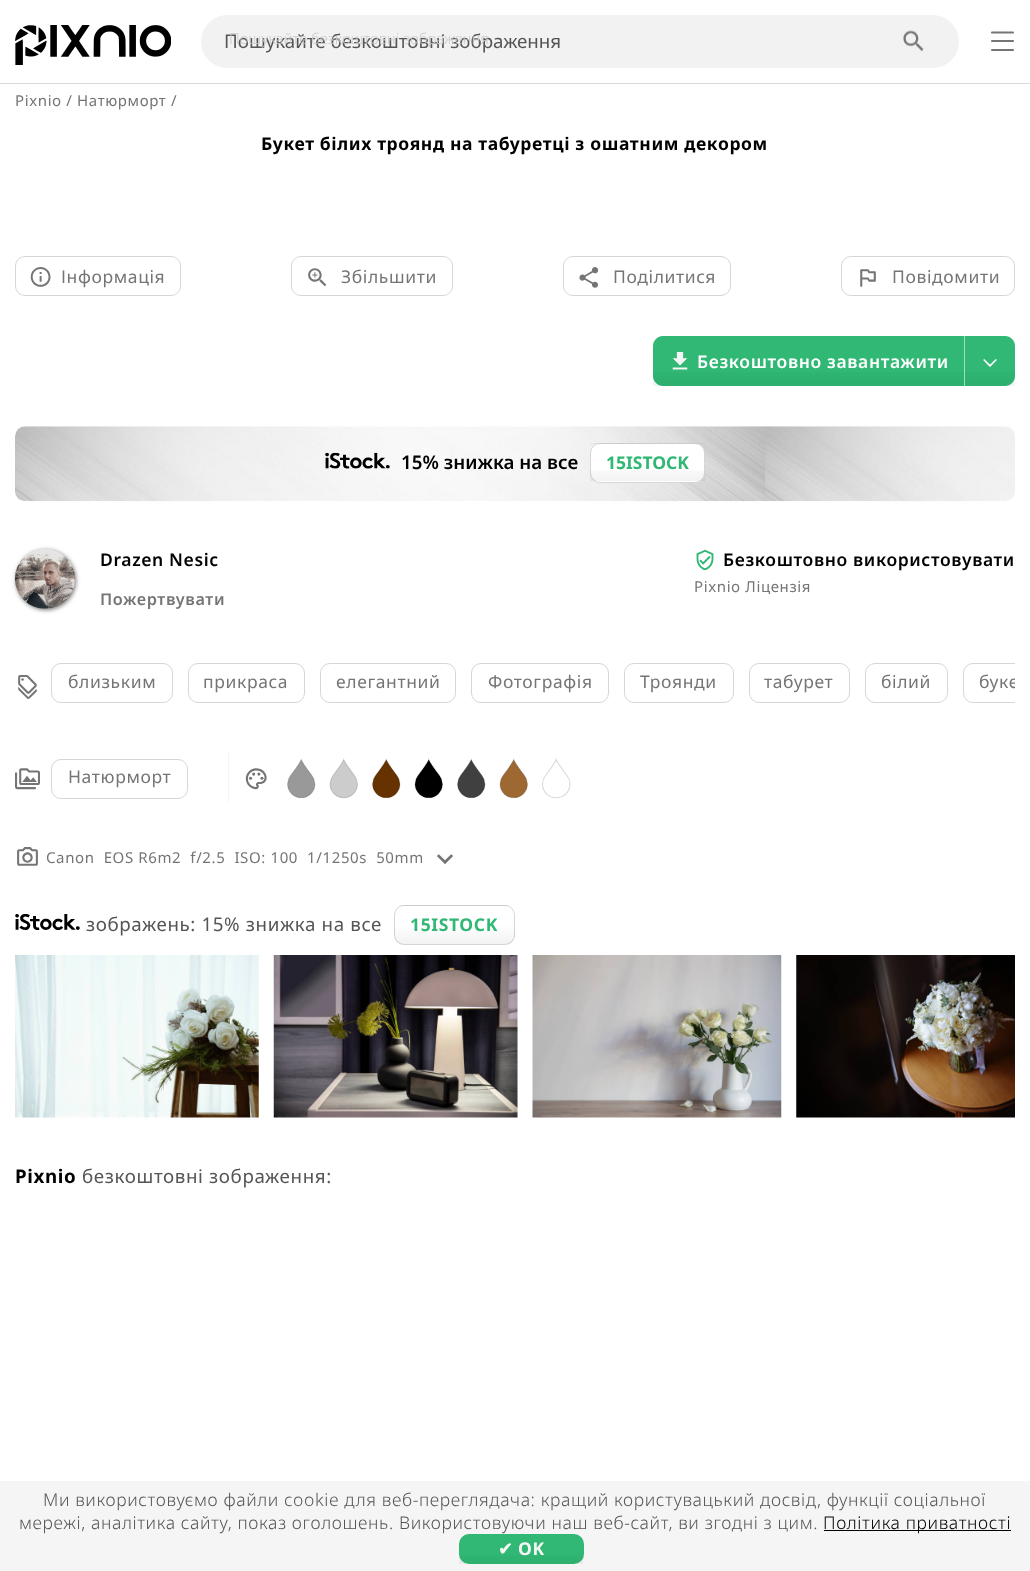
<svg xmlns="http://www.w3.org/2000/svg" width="1030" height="1571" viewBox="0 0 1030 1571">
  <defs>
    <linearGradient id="g1" gradientUnits="userSpaceOnUse" x1="808" y1="336" x2="808" y2="386"><stop offset="0.5" stop-color="#000000" stop-opacity="0"/><stop offset="1" stop-color="#000000" stop-opacity="0.05"/></linearGradient>
    <linearGradient id="g2" gradientUnits="userSpaceOnUse" x1="990" y1="336" x2="990" y2="386"><stop offset="0.5" stop-color="#000000" stop-opacity="0"/><stop offset="1" stop-color="#000000" stop-opacity="0.05"/></linearGradient>
    <linearGradient id="g3" gradientUnits="userSpaceOnUse" x1="648" y1="406" x2="648" y2="444"><stop offset="0.5" stop-color="#000000" stop-opacity="0"/><stop offset="1" stop-color="#000000" stop-opacity="0.05"/></linearGradient>
    <linearGradient id="g4" gradientUnits="userSpaceOnUse" x1="648" y1="444" x2="648" y2="481"><stop offset="0.5" stop-color="#000000" stop-opacity="0"/><stop offset="1" stop-color="#000000" stop-opacity="0.05"/></linearGradient>
    <filter id="blur1" x="-50%" y="-200%" width="200%" height="500%"><feGaussianBlur stdDeviation="2"/></filter>
    <clipPath id="clip1"><rect x="15" y="658" width="1000" height="66"/></clipPath>
    <clipPath id="clip2"><rect x="394" y="905" width="121" height="40" rx="10"/></clipPath>
    <linearGradient id="g5" gradientUnits="userSpaceOnUse" x1="454" y1="869" x2="454" y2="906"><stop offset="0.5" stop-color="#ffffff"/><stop offset="1" stop-color="#f2f2f2"/></linearGradient>
    <linearGradient id="g6" gradientUnits="userSpaceOnUse" x1="454" y1="906" x2="454" y2="944"><stop offset="0.5" stop-color="#ffffff"/><stop offset="1" stop-color="#f2f2f2"/></linearGradient>
    <linearGradient id="g7" gradientUnits="userSpaceOnUse" x1="521" y1="1534" x2="521" y2="1564"><stop offset="0.5" stop-color="#000000" stop-opacity="0"/><stop offset="1" stop-color="#000000" stop-opacity="0.05"/></linearGradient>
  </defs>
  <rect width="100%" height="100%" fill="#ffffff"/>
  <rect x="0" y="83" width="1030" height="1" fill="#d9d9d9"/>
  <image x="15" y="25" width="156" height="40" href="img1.png"/>
  <rect x="201" y="15" width="758" height="53" rx="26.5" fill="#f2f2f2"/>
  <text x="224" y="48" font-family="Noto Sans" font-size="18.75" fill="#555555">Пошукайте безкоштовні зображення</text>
  <text x="229" y="44" font-family="Noto Sans" font-size="15" font-weight="300" fill="#cacaca">Пошукайте безкоштовні зображення</text>
  <image x="903" y="30" width="21" height="22" href="img2.png"/>
  <path d="M992 32.5H1013M992 41H1013M1013 50H992" fill="none" stroke="#757575" stroke-width="2.1" stroke-linecap="round"/>
  <text x="15" y="106" font-family="Noto Sans" font-size="15" letter-spacing="0.62" fill="#757575">Pixnio / Натюрморт /</text>
  <text x="261" y="150" font-family="Noto Sans" font-size="17.5" font-weight="bold" letter-spacing="0.62" fill="#000000">Букет білих троянд на табуретці з ошатним декором</text>
  <rect x="15.5" y="256.5" width="165" height="39" rx="9.5" fill="none" stroke="#d6d6d6"/>
  <image x="30" y="267" width="21" height="20" href="img3.png"/>
  <text x="61" y="283" font-family="Noto Sans" font-size="17.5" letter-spacing="0.62" fill="#757575">Інформація</text>
  <rect x="291.5" y="256.5" width="161" height="39" rx="9.5" fill="none" stroke="#d6d6d6"/>
  <image x="308" y="268" width="19" height="19" href="img4.png"/>
  <text x="341" y="283" font-family="Noto Sans" font-size="17.5" letter-spacing="0.62" fill="#757575">Збільшити</text>
  <rect x="563.5" y="256.5" width="167" height="39" rx="9.5" fill="none" stroke="#d6d6d6"/>
  <image x="579" y="267" width="20" height="21" href="img5.png"/>
  <text x="613" y="283" font-family="Noto Sans" font-size="17.5" letter-spacing="0.62" fill="#757575">Поділитися</text>
  <rect x="841.5" y="256.5" width="173" height="39" rx="9.5" fill="none" stroke="#d6d6d6"/>
  <image x="860" y="269" width="16" height="18" href="img6.png"/>
  <text x="892" y="283" font-family="Noto Sans" font-size="17.5" letter-spacing="0.62" fill="#757575">Повідомити</text>
  <path d="M663 336H965V386H663C657.5 386 653 381.5 653 376V346C653 340.5 657.5 336 663 336Z" fill="#30b874"/>
  <rect x="653" y="372" width="312" height="14" fill="url(#g1)"/>
  <rect x="964" y="336" width="1" height="50" fill="#ffffff" fill-opacity="0.55"/>
  <image x="672" y="352" width="16" height="18" href="img7.png"/>
  <text x="697" y="368" font-family="Noto Sans" font-size="17.5" font-weight="600" letter-spacing="0.62" fill="#ffffff">Безкоштовно завантажити</text>
  <path d="M965 336H1005C1010.5 336 1015 340.5 1015 346V376C1015 381.5 1010.5 386 1005 386H965Z" fill="#30b874"/>
  <rect x="965" y="372" width="50" height="14" fill="url(#g2)"/>
  <image x="983" y="359" width="14" height="8" href="img8.png"/>
  <image x="15" y="426" width="1000" height="76" href="img9.png"/>
  <image x="325" y="452" width="65" height="17" href="img10.png"/>
  <text x="401" y="469" font-family="Noto Sans" font-size="18.75" font-weight="600" fill="#000000">15% знижка на все</text>
  <rect x="590" y="443" width="115" height="40" rx="10" fill="#ffffff"/>
  <rect x="590" y="443" width="115" height="1" fill="url(#g3)"/>
  <rect x="590" y="470" width="115" height="11" fill="url(#g4)"/>
  <rect x="590.5" y="443.5" width="114" height="39" rx="9.5" fill="none" stroke="#000000" stroke-opacity="0.16"/>
  <text x="606" y="469" font-family="Noto Sans" font-size="17.5" font-weight="bold" fill="#30b874">15ISTOCK</text>
  <rect x="16" y="550" width="60" height="60" rx="30" fill="#777777" filter="url(#blur1)"/>
  <image x="15" y="549" width="60" height="60" href="img11.png"/>
  <text x="100" y="566" font-family="Noto Sans" font-size="17.5" font-weight="600" letter-spacing="0.62" fill="#000000">Drazen Nesic</text>
  <text x="100" y="605" font-family="Noto Sans" font-size="16.25" font-weight="600" letter-spacing="0.62" fill="#757575">Пожертвувати</text>
  <image x="696" y="549" width="18" height="22" href="img12.png"/>
  <text x="723" y="566" font-family="Noto Sans" font-size="17.5" font-weight="600" letter-spacing="0.62" fill="#000000">Безкоштовно використовувати</text>
  <text x="694" y="592" font-family="Noto Sans" font-size="15" letter-spacing="0.62" fill="#757575">Pixnio Ліцензія</text>
  <image x="18" y="675" width="19" height="24" href="img13.png"/>
  <rect x="51.5" y="663.5" width="121" height="39" rx="9.5" fill="none" stroke="#d6d6d6"/>
  <text x="68" y="688" font-family="Noto Sans" font-size="17.5" letter-spacing="0.62" fill="#757575">близьким</text>
  <rect x="188.5" y="663.5" width="116" height="39" rx="9.5" fill="none" stroke="#d6d6d6"/>
  <text x="203" y="688" font-family="Noto Sans" font-size="17.5" letter-spacing="0.62" fill="#757575">прикраса</text>
  <rect x="320.5" y="663.5" width="135" height="39" rx="9.5" fill="none" stroke="#d6d6d6"/>
  <text x="336" y="688" font-family="Noto Sans" font-size="17.5" letter-spacing="0.62" fill="#757575">елегантний</text>
  <rect x="471.5" y="663.5" width="137" height="39" rx="9.5" fill="none" stroke="#d6d6d6"/>
  <text x="488" y="688" font-family="Noto Sans" font-size="17.5" letter-spacing="0.62" fill="#757575">Фотографія</text>
  <rect x="624.5" y="663.5" width="109" height="39" rx="9.5" fill="none" stroke="#d6d6d6"/>
  <text x="640" y="688" font-family="Noto Sans" font-size="17.5" letter-spacing="0.62" fill="#757575">Троянди</text>
  <rect x="749.5" y="663.5" width="100" height="39" rx="9.5" fill="none" stroke="#d6d6d6"/>
  <text x="764" y="688" font-family="Noto Sans" font-size="17.5" letter-spacing="0.62" fill="#757575">табурет</text>
  <rect x="865.5" y="663.5" width="82" height="39" rx="9.5" fill="none" stroke="#d6d6d6"/>
  <text x="881" y="688" font-family="Noto Sans" font-size="17.5" letter-spacing="0.62" fill="#757575">білий</text>
  <g clip-path="url(#clip1)">
    <rect x="963.5" y="663.5" width="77" height="39" rx="9.5" fill="none" stroke="#d6d6d6"/>
    <text x="979" y="688" font-family="Noto Sans" font-size="17.5" letter-spacing="0.62" fill="#757575">буке</text>
  </g>
  <image x="15" y="768" width="25" height="22" href="img14.png"/>
  <rect x="51.5" y="759.5" width="136" height="39" rx="9.5" fill="none" stroke="#d6d6d6"/>
  <text x="68" y="783" font-family="Noto Sans" font-size="17.5" letter-spacing="0.62" fill="#757575">Натюрморт</text>
  <rect x="228" y="751" width="1" height="52" fill="#f5f5f5"/>
  <image x="245" y="768" width="22" height="22" href="img15.png"/>
  <image x="287" y="758" width="29" height="41" href="img16.png"/>
  <image x="329" y="758" width="29" height="41" href="img17.png"/>
  <image x="372" y="758" width="29" height="41" href="img18.png"/>
  <image x="414" y="758" width="29" height="41" href="img19.png"/>
  <image x="457" y="758" width="29" height="41" href="img20.png"/>
  <image x="499" y="758" width="29" height="41" href="img21.png"/>
  <image x="542" y="758" width="29" height="41" href="img22.png"/>
  <image x="17" y="847" width="21" height="19" href="img23.png"/>
  <text x="46" y="863" font-family="Noto Sans" font-size="15" letter-spacing="0.62" fill="#757575" xml:space="preserve">Canon  EOS R6m2  f/2.5  ISO: 100  1/1250s  50mm</text>
  <image x="437" y="854" width="16" height="10" href="img24.png"/>
  <image x="15" y="914" width="65" height="16" href="img25.png"/>
  <text x="86" y="931" font-family="Noto Sans" font-size="18.75" letter-spacing="0.62" fill="#555555">зображень: 15% знижка на все</text>
  <g clip-path="url(#clip2)">
    <rect x="394" y="905" width="121" height="1" fill="url(#g5)"/>
    <rect x="394" y="906" width="121" height="38" fill="url(#g6)"/>
  </g>
  <rect x="394.5" y="905.5" width="120" height="39" rx="9.5" fill="none" stroke="#000000" stroke-opacity="0.16"/>
  <text x="410" y="931" font-family="Noto Sans" font-size="17.5" font-weight="bold" letter-spacing="0.62" fill="#30b874">15ISTOCK</text>
  <image x="15" y="955" width="244" height="163" href="img26.png"/>
  <image x="273" y="955" width="245" height="163" href="img27.png"/>
  <image x="532" y="955" width="250" height="163" href="img28.png"/>
  <image x="796" y="955" width="219" height="163" href="img29.png"/>
  <text x="15" y="1183" font-family="Noto Sans" font-size="18.75" font-weight="bold" letter-spacing="0.62" fill="#000000">Pixnio</text>
  <text x="82" y="1183" font-family="Noto Sans" font-size="18.75" letter-spacing="0.62" fill="#555555">безкоштовні зображення:</text>
  <rect x="0" y="1481" width="1030" height="90" fill="#f5f5f5"/>
  <text x="43" y="1506" font-family="Noto Sans" font-size="17.5" font-weight="300" letter-spacing="0.62" fill="#555555">Ми використовуємо файли cookie для веб-переглядача: кращий користувацький досвід, функції соціальної</text>
  <text x="19" y="1529" font-family="Noto Sans" font-size="17.5" font-weight="300" letter-spacing="0.62" fill="#555555">мережі, аналітика сайту, показ оголошень. Використовуючи наш веб-сайт, ви згодні з цим.</text>
  <rect x="824" y="1530" width="187" height="1" fill="#000000"/>
  <text x="823" y="1529" font-family="Noto Sans" font-size="17.5" font-weight="300" letter-spacing="0.62" fill="#000000">Політика приватності</text>
  <rect x="459" y="1534" width="125" height="30" rx="10" fill="#30b874"/>
  <rect x="459" y="1555" width="124" height="9" fill="url(#g7)"/>
  <text x="498" y="1555" font-family="DejaVu Sans" font-size="17.5" font-weight="bold" letter-spacing="0.62" fill="#f5f5f5">✔</text>
  <text x="518" y="1555" font-family="Noto Sans" font-size="17.5" font-weight="bold" letter-spacing="0.62" fill="#f5f5f5">OK</text>
</svg>
